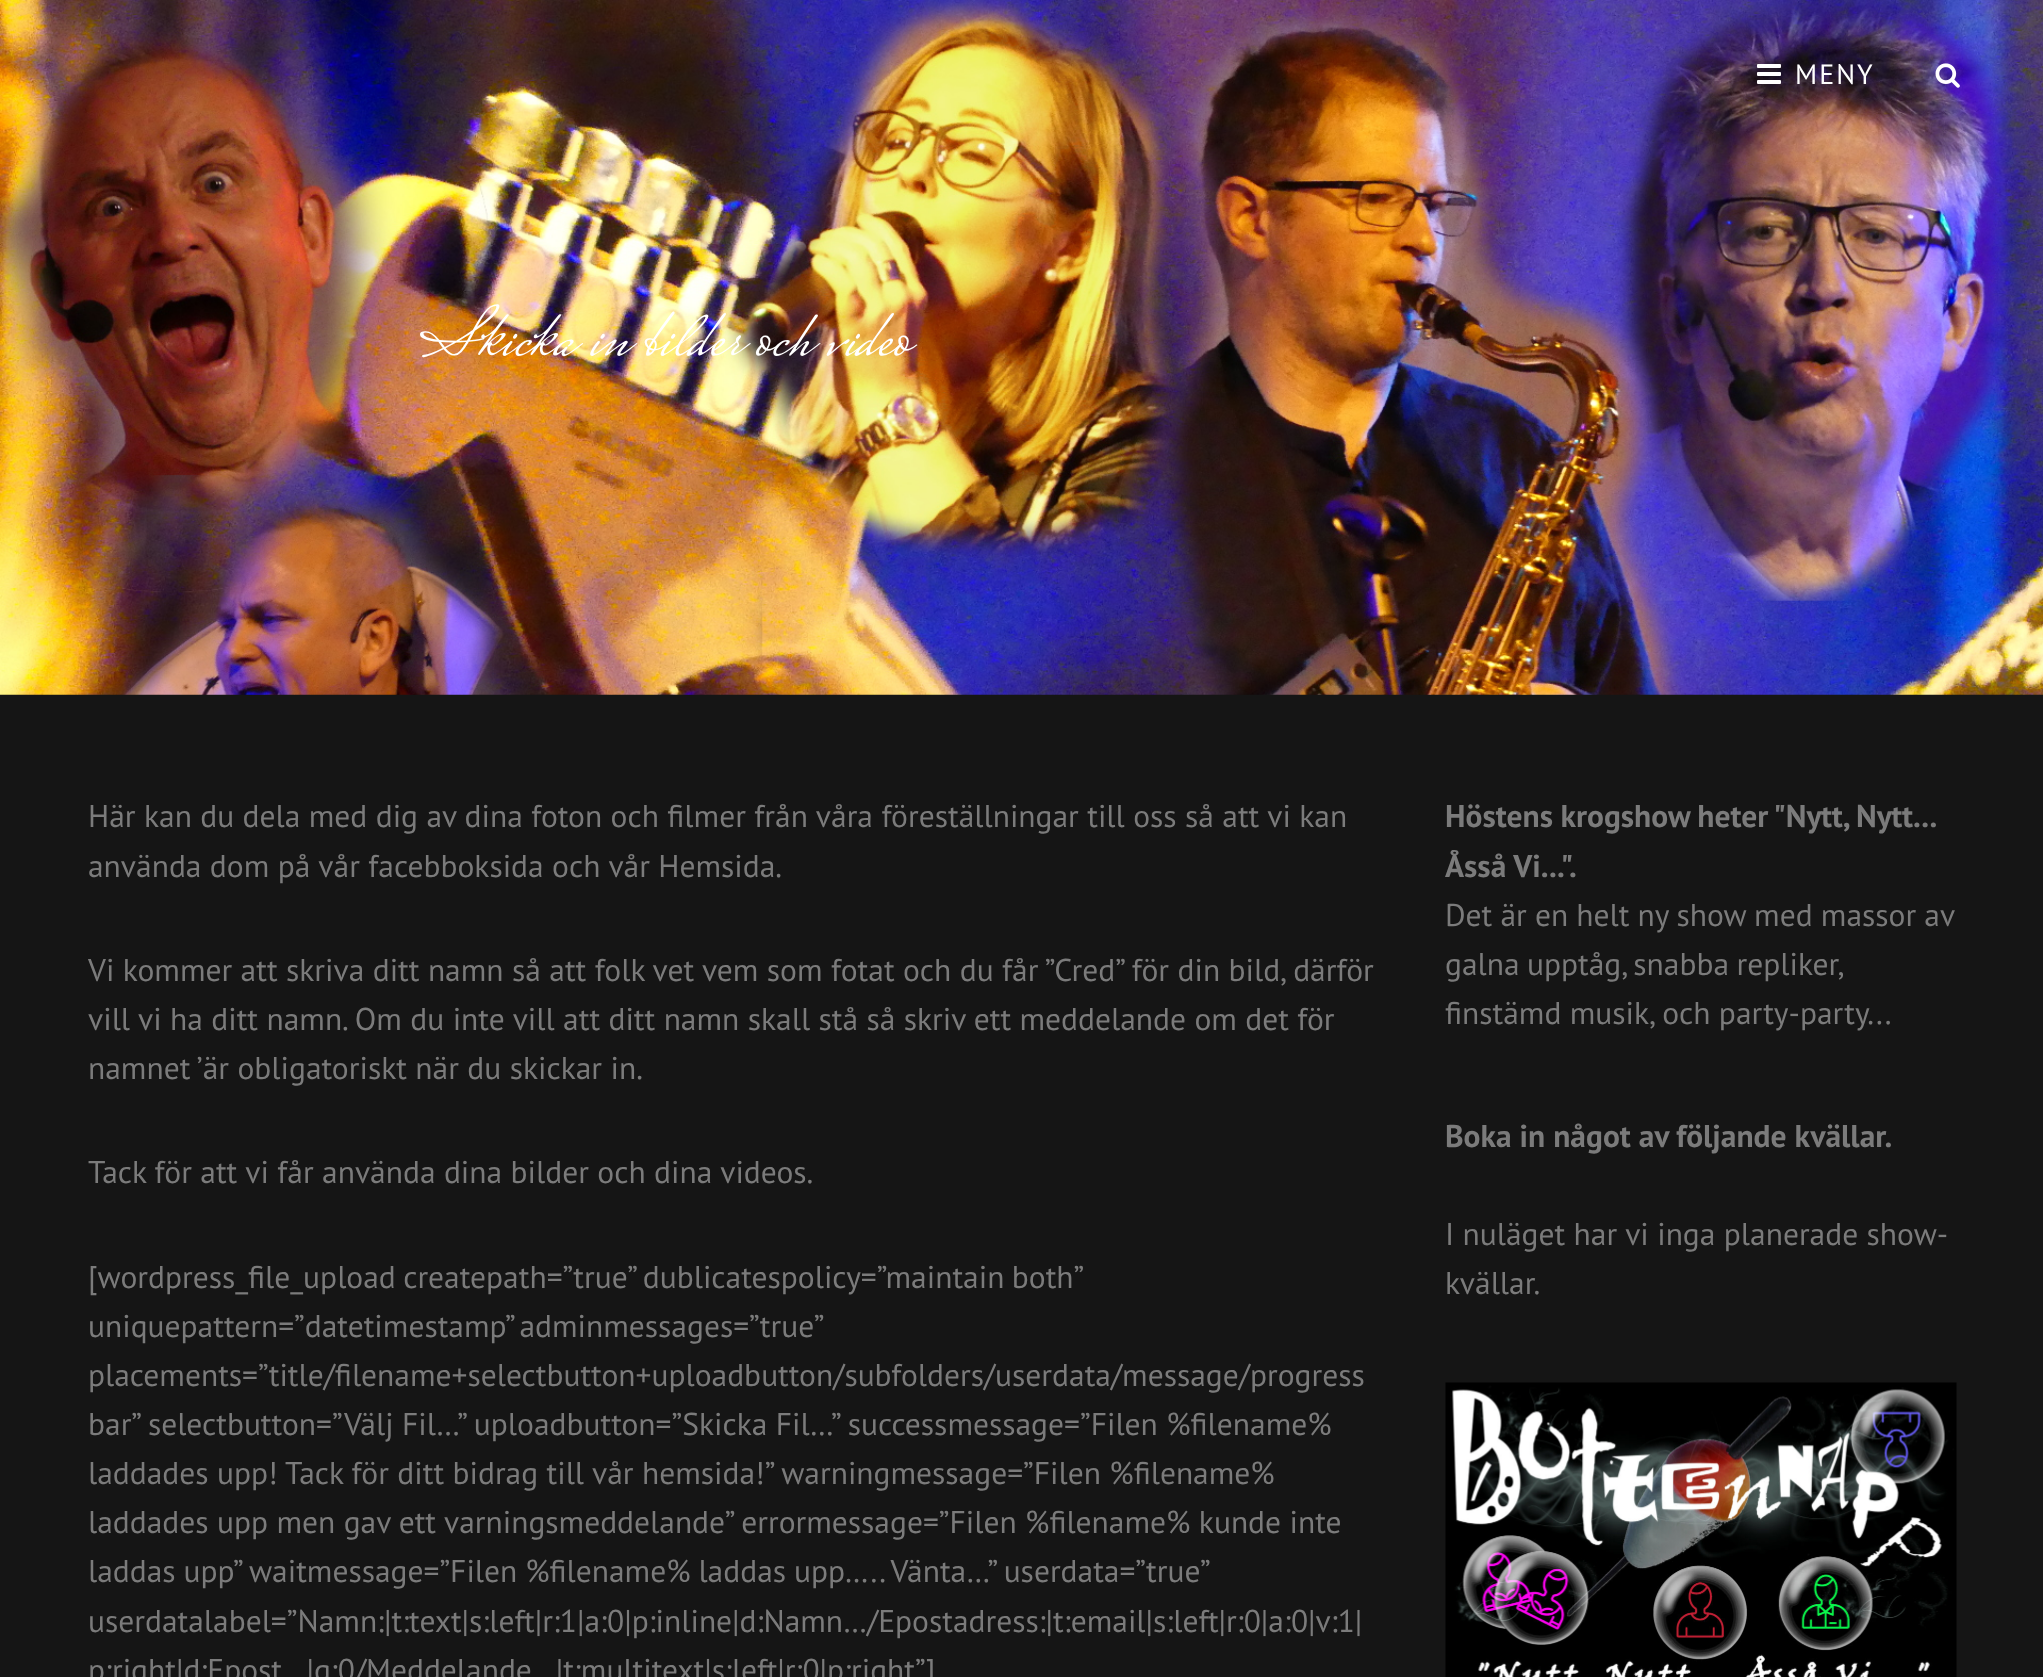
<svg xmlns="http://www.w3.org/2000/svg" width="2043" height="1677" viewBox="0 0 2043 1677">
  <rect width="100%" height="100%" fill="#151515"/>
  <image x="0" y="0" width="2043" height="695" href="img3.png"/>
  <image x="1757" y="64" width="24" height="20" href="img1.png"/>
  <text x="1795" y="84" font-family="PT Sans" font-size="28" letter-spacing="2" fill="#ffffff">MENY</text>
  <image x="1935" y="63" width="25" height="25" href="img2.png"/>
  <text x="420" y="355" font-family="Mrs Saint Delafield" font-size="70" fill="#ffffff">Skicka in bilder och video</text>
  <text x="88" y="827" font-family="PT Sans" font-size="31.5" fill="#7b7b7b">Här kan du dela med dig av dina foton och filmer från våra föreställningar till oss så att vi kan</text>
  <text x="88" y="877" font-family="PT Sans" font-size="31.5" fill="#7b7b7b">använda dom på vår facebboksida och vår Hemsida.</text>
  <text x="88" y="981" font-family="PT Sans" font-size="31.5" fill="#7b7b7b">Vi kommer att skriva ditt namn så att folk vet vem som fotat och du får ”Cred” för din bild, därför</text>
  <text x="88" y="1030" font-family="PT Sans" font-size="31.5" fill="#7b7b7b">vill vi ha ditt namn. Om du inte vill att ditt namn skall stå så skriv ett meddelande om det för</text>
  <text x="88" y="1079" font-family="PT Sans" font-size="31.5" fill="#7b7b7b">namnet ’är obligatoriskt när du skickar in.</text>
  <text x="88" y="1183" font-family="PT Sans" font-size="31.5" fill="#7b7b7b">Tack för att vi får använda dina bilder och dina videos.</text>
  <text x="88" y="1288" word-spacing="-1" font-family="PT Sans" font-size="31.5" fill="#7b7b7b">[wordpress_file_upload createpath=”true” dublicatespolicy=”maintain both”</text>
  <text x="88" y="1337" word-spacing="-2" font-family="PT Sans" font-size="31.5" fill="#7b7b7b">uniquepattern=”datetimestamp” adminmessages=”true”</text>
  <text x="88" y="1386" font-family="PT Sans" font-size="31.5" fill="#7b7b7b">placements=”title/filename+selectbutton+uploadbutton/subfolders/userdata/message/progress</text>
  <text x="88" y="1435" font-family="PT Sans" font-size="31.5" fill="#7b7b7b">bar” selectbutton=”Välj Fil…” uploadbutton=”Skicka Fil…” successmessage=”Filen %filename%</text>
  <text x="88" y="1484" font-family="PT Sans" font-size="31.5" fill="#7b7b7b">laddades upp! Tack för ditt bidrag till vår hemsida!” warningmessage=”Filen %filename%</text>
  <text x="88" y="1533" font-family="PT Sans" font-size="31.5" fill="#7b7b7b">laddades upp men gav ett varningsmeddelande” errormessage=”Filen %filename% kunde inte</text>
  <text x="88" y="1582" word-spacing="-0.5" font-family="PT Sans" font-size="31.5" fill="#7b7b7b">laddas upp” waitmessage=”Filen %filename% laddas upp….. Vänta…” userdata=”true”</text>
  <text x="88" y="1632" font-family="PT Sans" font-size="31.5" fill="#7b7b7b">userdatalabel=”Namn:|t:text|s:left|r:1|a:0|p:inline|d:Namn…/Epostadress:|t:email|s:left|r:0|a:0|v:1|</text>
  <text x="88" y="1681" font-family="PT Sans" font-size="31.5" fill="#7b7b7b">p:right|d:Epost…|g:0/Meddelande…|t:multitext|s:left|r:0|p:right”]</text>
  <text x="1445" y="827" word-spacing="-0.5" font-family="PT Sans" font-size="31.5" font-weight="bold" fill="#7b7b7b">Höstens krogshow heter "Nytt, Nytt...</text>
  <text x="1445" y="877" font-family="PT Sans" font-size="31.5" font-weight="bold" fill="#7b7b7b">Åsså Vi...".</text>
  <text x="1445" y="926" word-spacing="-0.25" font-family="PT Sans" font-size="31.5" fill="#7b7b7b">Det är en helt ny show med massor av</text>
  <text x="1445" y="975" word-spacing="-1" font-family="PT Sans" font-size="31.5" fill="#7b7b7b">galna upptåg, snabba repliker,</text>
  <text x="1445" y="1024" font-family="PT Sans" font-size="31.5" fill="#7b7b7b">finstämd musik, och party-party...</text>
  <text x="1445" y="1147" font-family="PT Sans" font-size="31.5" font-weight="bold" fill="#7b7b7b">Boka in något av följande kvällar.</text>
  <text x="1445" y="1245" font-family="PT Sans" font-size="31.5" fill="#7b7b7b">I nuläget har vi inga planerade show-</text>
  <text x="1445" y="1294" font-family="PT Sans" font-size="31.5" fill="#7b7b7b">kvällar.</text>
  <image x="1445" y="1382" width="512" height="295" href="img4.png"/>
</svg>
